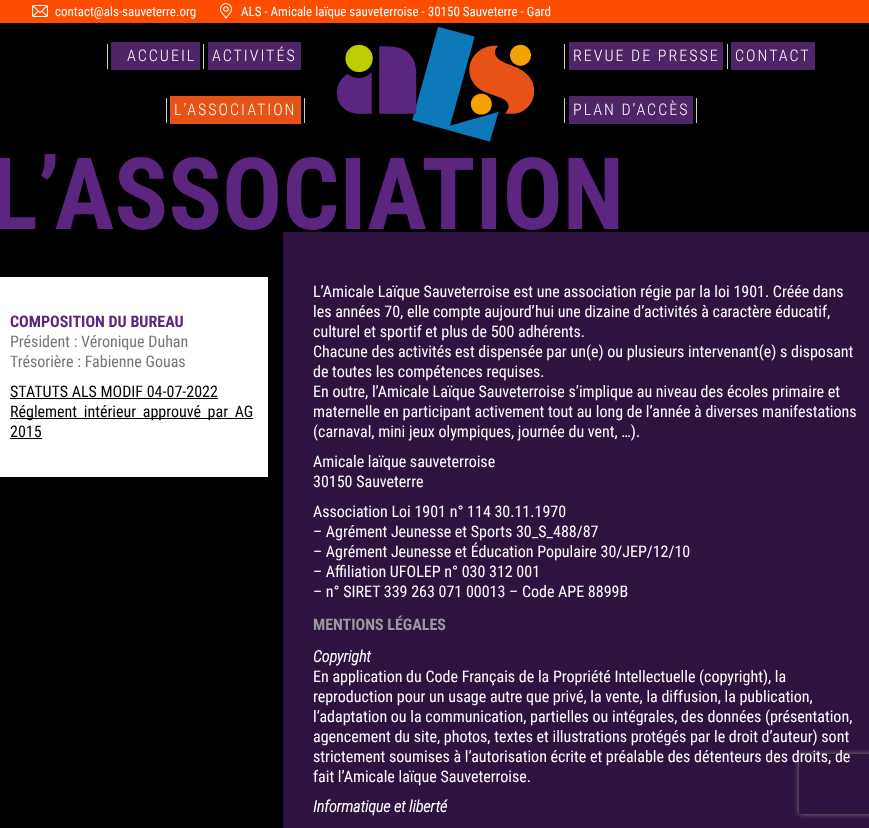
<svg xmlns="http://www.w3.org/2000/svg" width="869" height="828" viewBox="0 0 869 828">
  <defs>
    <clipPath id="clip1"><path d="M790 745H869V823H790ZM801 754H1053C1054 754 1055 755 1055 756V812C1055 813 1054 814 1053 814H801C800 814 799 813 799 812V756C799 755 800 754 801 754Z" clip-rule="evenodd"/></clipPath>
    <filter id="blur1" x="-50%" y="-200%" width="200%" height="500%"><feGaussianBlur stdDeviation="2.5"/></filter>
  </defs>
  <rect width="100%" height="100%" fill="#000000"/>
  <rect x="0" y="0" width="869" height="23" fill="#fc4d02"/>
  <image x="32" y="5" width="16" height="12" href="img1.png"/>
  <text x="55" y="16" font-family="Roboto Condensed" font-size="13" fill="#ffffff">contact@als-sauveterre.org</text>
  <image x="220" y="3" width="12" height="16" href="img2.png"/>
  <text x="241" y="16" font-family="Roboto Condensed" font-size="13" fill="#ffffff">ALS - Amicale laïque sauveterroise - 30150 Sauveterre - Gard</text>
  <rect x="107" y="44" width="1" height="25" fill="#cccccc"/>
  <rect x="111" y="42" width="89" height="28" fill="#4e2667"/>
  <text x="127" y="61" font-family="Roboto Condensed" font-size="16" font-weight="300" letter-spacing="2" fill="#ffffff">ACCUEIL</text>
  <rect x="203" y="44" width="1" height="25" fill="#cccccc"/>
  <rect x="208" y="42" width="93" height="28" fill="#4e2667"/>
  <text x="212" y="61" font-family="Roboto Condensed" font-size="16" font-weight="300" letter-spacing="2" fill="#ffffff">ACTIVITÉS</text>
  <rect x="166" y="98" width="1" height="25" fill="#cccccc"/>
  <rect x="170" y="96" width="131" height="28" fill="#e75317"/>
  <text x="174" y="115" font-family="Roboto Condensed" font-size="16" font-weight="300" letter-spacing="2" fill="#ffffff">L’ASSOCIATION</text>
  <rect x="304" y="98" width="1" height="25" fill="#cccccc"/>
  <image x="336" y="26" width="198" height="116" href="img3.png"/>
  <rect x="564" y="44" width="1" height="25" fill="#cccccc"/>
  <rect x="569" y="42" width="154" height="28" fill="#4e2667"/>
  <text x="573" y="61" font-family="Roboto Condensed" font-size="16" font-weight="300" letter-spacing="2" fill="#ffffff">REVUE DE PRESSE</text>
  <rect x="727" y="44" width="1" height="25" fill="#cccccc"/>
  <rect x="731" y="42" width="84" height="28" fill="#4e2667"/>
  <text x="735" y="61" font-family="Roboto Condensed" font-size="16" font-weight="300" letter-spacing="2" fill="#ffffff">CONTACT</text>
  <rect x="564" y="98" width="1" height="25" fill="#cccccc"/>
  <rect x="569" y="96" width="124" height="28" fill="#4e2667"/>
  <text x="573" y="115" font-family="Roboto Condensed" font-size="16" font-weight="300" letter-spacing="2" fill="#ffffff">PLAN D’ACCÈS</text>
  <rect x="696" y="98" width="1" height="25" fill="#cccccc"/>
  <text x="-10" y="229" font-family="Roboto Condensed" font-size="100" font-weight="bold" fill="#5c2580">L’ASSOCIATION</text>
  <rect x="0" y="277" width="268" height="200" fill="#ffffff"/>
  <text x="10" y="327" font-family="Roboto Condensed" font-size="16" font-weight="bold" fill="#5c2580">COMPOSITION DU BUREAU</text>
  <text x="10" y="347" font-family="Roboto Condensed" font-size="16" fill="#777777">Président : Véronique Duhan</text>
  <text x="10" y="367" font-family="Roboto Condensed" font-size="16" fill="#777777">Trésorière : Fabienne Gouas</text>
  <text x="10" y="397" font-family="Roboto Condensed" font-size="16" fill="#000000">STATUTS ALS MODIF 04-07-2022</text>
  <rect x="10" y="398" width="208" height="1" fill="#000000"/>
  <rect x="10" y="418" width="243" height="1" fill="#000000"/>
  <text x="10" y="417" word-spacing="3" font-family="Roboto Condensed" font-size="16" fill="#000000">Réglement intérieur approuvé par AG</text>
  <text x="10" y="437" font-family="Roboto Condensed" font-size="16" fill="#000000">2015</text>
  <rect x="10" y="438" width="32" height="1" fill="#000000"/>
  <rect x="283" y="232" width="586" height="596" fill="#2e1340"/>
  <text x="313" y="297" font-family="Roboto Condensed" font-size="16" fill="#ffffff">L’Amicale Laïque Sauveterroise est une association régie par la loi 1901. Créée dans</text>
  <text x="313" y="317" font-family="Roboto Condensed" font-size="16" fill="#ffffff">les années 70, elle compte aujourd’hui une dizaine d’activités à caractère éducatif,</text>
  <text x="313" y="337" font-family="Roboto Condensed" font-size="16" fill="#ffffff">culturel et sportif et plus de 500 adhérents.</text>
  <text x="313" y="357" font-family="Roboto Condensed" font-size="16" fill="#ffffff">Chacune des activités est dispensée par un(e) ou plusieurs intervenant(e) s disposant</text>
  <text x="313" y="377" font-family="Roboto Condensed" font-size="16" fill="#ffffff">de toutes les compétences requises.</text>
  <text x="313" y="397" font-family="Roboto Condensed" font-size="16" fill="#ffffff">En outre, l’Amicale Laïque Sauveterroise s’implique au niveau des écoles primaire et</text>
  <text x="313" y="417" font-family="Roboto Condensed" font-size="16" fill="#ffffff">maternelle en participant activement tout au long de l’année à diverses manifestations</text>
  <text x="313" y="437" font-family="Roboto Condensed" font-size="16" fill="#ffffff">(carnaval, mini jeux olympiques, journée du vent, …).</text>
  <text x="313" y="467" font-family="Roboto Condensed" font-size="16" fill="#ffffff">Amicale laïque sauveterroise</text>
  <text x="313" y="487" font-family="Roboto Condensed" font-size="16" fill="#ffffff">30150 Sauveterre</text>
  <text x="313" y="517" font-family="Roboto Condensed" font-size="16" fill="#ffffff">Association Loi 1901 n° 114 30.11.1970</text>
  <text x="313" y="537" font-family="Roboto Condensed" font-size="16" fill="#ffffff">– Agrément Jeunesse et Sports 30_S_488/87</text>
  <text x="313" y="557" font-family="Roboto Condensed" font-size="16" fill="#ffffff">– Agrément Jeunesse et Éducation Populaire 30/JEP/12/10</text>
  <text x="313" y="577" font-family="Roboto Condensed" font-size="16" fill="#ffffff">– Affiliation UFOLEP n° 030 312 001</text>
  <text x="313" y="597" font-family="Roboto Condensed" font-size="16" fill="#ffffff">– n° SIRET 339 263 071 00013 – Code APE 8899B</text>
  <text x="313" y="630" font-family="Roboto Condensed" font-size="16" font-weight="bold" fill="#999999">MENTIONS LÉGALES</text>
  <text x="313" y="662" font-family="Roboto Condensed" font-size="16" font-weight="bold" font-style="italic" fill="#ffffff">Copyright</text>
  <text x="313" y="682" font-family="Roboto Condensed" font-size="16" fill="#ffffff">En application du Code Français de la Propriété Intellectuelle (copyright), la</text>
  <text x="313" y="702" font-family="Roboto Condensed" font-size="16" fill="#ffffff">reproduction pour un usage autre que privé, la vente, la diffusion, la publication,</text>
  <text x="313" y="722" font-family="Roboto Condensed" font-size="16" fill="#ffffff">l’adaptation ou la communication, partielles ou intégrales, des données (présentation,</text>
  <g clip-path="url(#clip1)">
    <rect x="799" y="754" width="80" height="60" rx="2" fill="#818181" filter="url(#blur1)"/>
  </g>
  <text x="313" y="742" font-family="Roboto Condensed" font-size="16" fill="#ffffff">agencement du site, photos, textes et illustrations protégés par le droit d’auteur) sont</text>
  <text x="313" y="762" font-family="Roboto Condensed" font-size="16" fill="#ffffff">strictement soumises à l’autorisation écrite et préalable des détenteurs des droits, de</text>
  <text x="313" y="782" font-family="Roboto Condensed" font-size="16" fill="#ffffff">fait l’Amicale laïque Sauveterroise.</text>
  <text x="313" y="812" font-family="Roboto Condensed" font-size="16" font-weight="bold" font-style="italic" fill="#ffffff">Informatique et liberté</text>
</svg>
